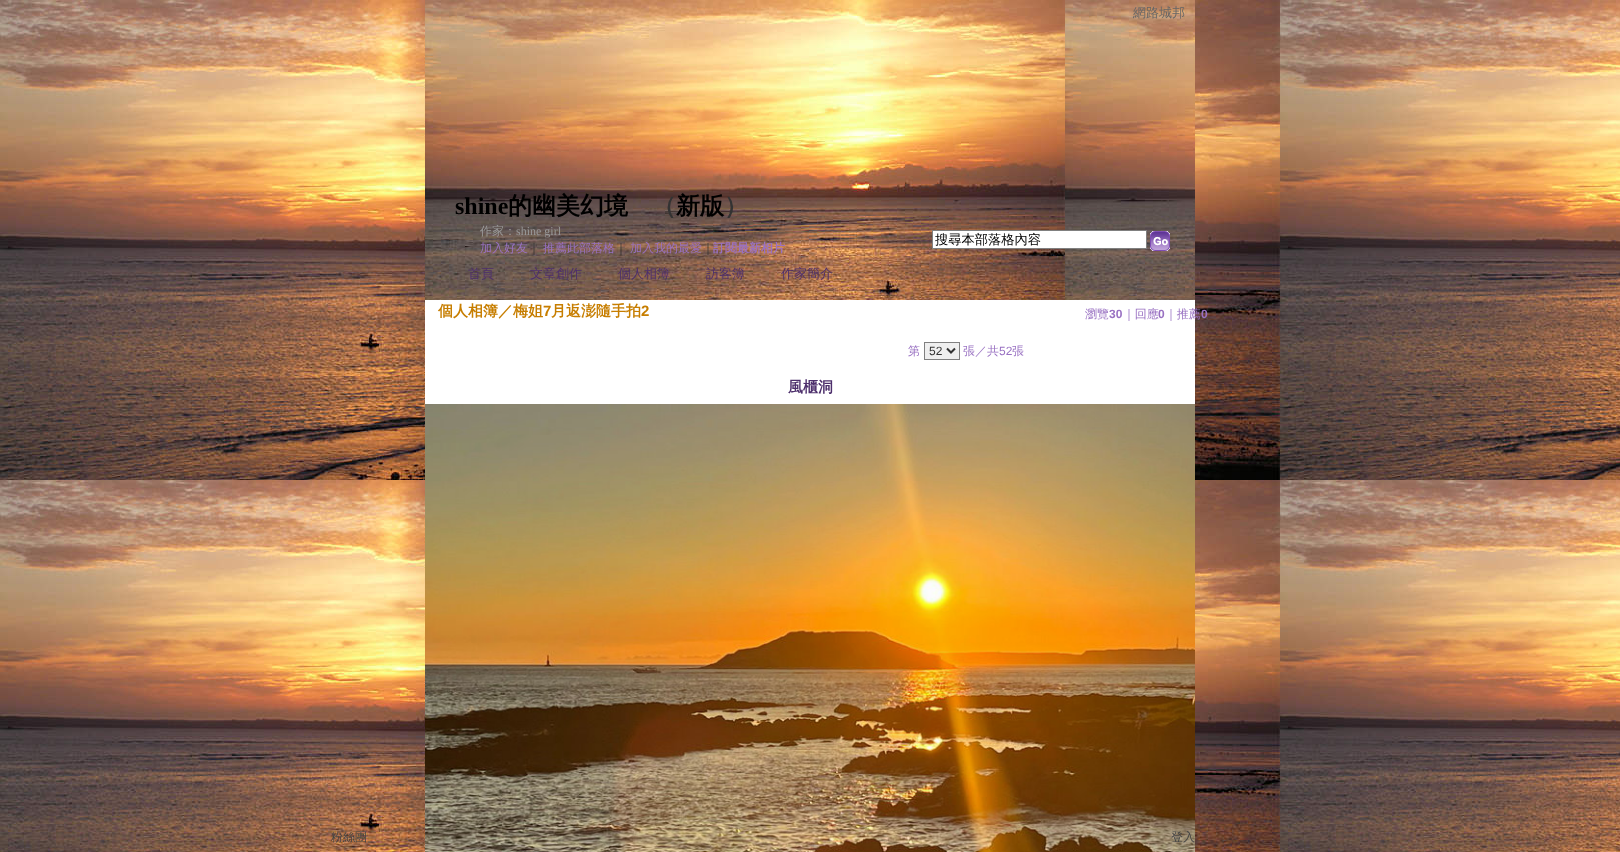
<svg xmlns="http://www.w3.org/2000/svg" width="1620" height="852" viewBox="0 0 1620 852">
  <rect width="100%" height="100%" fill="#ffffff"/>
  <image x="0" y="0" width="1620" height="852" href="img1.png"/>
  <rect x="425" y="300" width="770" height="104" fill="#ffffff"/>
  <image x="425" y="0" width="770" height="300" href="img2.png"/>
  <text x="1133" y="17" font-family="WenQuanYi Zen Hei" font-size="13" font-weight="500" fill="#666666">網路城邦</text>
  <text x="455" y="214" font-family="Liberation Serif" font-size="24" font-weight="bold" fill="#000000">shine</text>
  <text x="508" y="214" font-family="WenQuanYi Zen Hei" font-size="24" font-weight="bold" fill="#000000">的幽美幻境</text>
  <text x="652" y="214" font-family="WenQuanYi Zen Hei" font-size="24" font-weight="bold" fill="#333333">（</text>
  <text x="676" y="214" font-family="WenQuanYi Zen Hei" font-size="24" font-weight="bold" fill="#000000">新版</text>
  <text x="724" y="214" font-family="WenQuanYi Zen Hei" font-size="24" font-weight="bold" fill="#333333">）</text>
  <text x="480" y="235" font-family="WenQuanYi Zen Hei" font-size="12" font-weight="500" fill="#999999">作家：</text>
  <text x="516" y="235" font-family="Liberation Serif" font-size="12" fill="#999999">shine girl</text>
  <rect x="932.5" y="230.5" width="214" height="18" fill="#ffffff" stroke="#808080"/>
  <text x="935" y="244" font-family="WenQuanYi Zen Hei" font-size="13.25" font-weight="500" fill="#000000">搜尋本部落格內容</text>
  <image x="1150" y="231" width="20" height="20" href="img3.png"/>
  <text x="480" y="252" font-family="WenQuanYi Zen Hei" font-size="12" font-weight="500" fill="#9971c2">加入好友</text>
  <text x="528" y="252" font-family="WenQuanYi Zen Hei" font-size="12" font-weight="500" fill="#333333">｜</text>
  <text x="543" y="252" font-family="WenQuanYi Zen Hei" font-size="12" font-weight="500" fill="#9971c2">推薦此部落格</text>
  <text x="615" y="252" font-family="WenQuanYi Zen Hei" font-size="12" font-weight="500" fill="#333333">｜</text>
  <text x="630" y="252" font-family="WenQuanYi Zen Hei" font-size="12" font-weight="500" fill="#9971c2">加入我的最愛</text>
  <text x="702" y="252" font-family="WenQuanYi Zen Hei" font-size="12" font-weight="500" fill="#333333">｜</text>
  <text x="713" y="252" font-family="WenQuanYi Zen Hei" font-size="12" font-weight="bold" fill="#9971c2">訂閱最新相片</text>
  <text x="468" y="278" font-family="WenQuanYi Zen Hei" font-size="13" font-weight="500" fill="#4d2f6c">首頁</text>
  <text x="530" y="278" font-family="WenQuanYi Zen Hei" font-size="13" font-weight="500" fill="#4d2f6c">文章創作</text>
  <text x="618" y="278" font-family="WenQuanYi Zen Hei" font-size="13" font-weight="500" fill="#4d2f6c">個人相簿</text>
  <text x="706" y="278" font-family="WenQuanYi Zen Hei" font-size="13" font-weight="500" fill="#4d2f6c">訪客簿</text>
  <text x="781" y="278" font-family="WenQuanYi Zen Hei" font-size="13" font-weight="500" fill="#4d2f6c">作家簡介</text>
  <text x="438" y="316" font-family="WenQuanYi Zen Hei" font-size="15" font-weight="bold" fill="#c77e00">個人相簿／梅姐</text>
  <text x="543" y="316" font-family="Liberation Sans" font-size="15" font-weight="bold" fill="#c77e00">7</text>
  <text x="551" y="316" font-family="WenQuanYi Zen Hei" font-size="15" font-weight="bold" fill="#c77e00">月返澎隨手拍</text>
  <text x="641" y="316" font-family="Liberation Sans" font-size="15" font-weight="bold" fill="#c77e00">2</text>
  <text x="1085" y="318" font-family="WenQuanYi Zen Hei" font-size="12" font-weight="500" fill="#9971c2">瀏覽</text>
  <text x="1109" y="318" font-family="Liberation Sans" font-size="12" font-weight="bold" fill="#9971c2">30</text>
  <text x="1123" y="318" font-family="WenQuanYi Zen Hei" font-size="12" font-weight="500" fill="#9971c2">｜回應</text>
  <text x="1158" y="318" font-family="Liberation Sans" font-size="12" font-weight="bold" fill="#9971c2">0</text>
  <text x="1165" y="318" font-family="WenQuanYi Zen Hei" font-size="12" font-weight="500" fill="#9971c2">｜推薦</text>
  <text x="1201" y="318" font-family="Liberation Sans" font-size="12" font-weight="bold" fill="#9971c2">0</text>
  <text x="908" y="355" font-family="WenQuanYi Zen Hei" font-size="12" font-weight="500" fill="#9971c2">第</text>
  <rect x="924.5" y="342.5" width="35" height="17" fill="#efefef" stroke="#808080"/>
  <path d="M947 348.5L951 352.5L955 348.5" fill="none" stroke="#333333" stroke-width="2"/>
  <text x="929" y="355" font-family="Liberation Sans" font-size="12" fill="#333333">52</text>
  <text x="963" y="355" font-family="WenQuanYi Zen Hei" font-size="12" font-weight="500" fill="#9971c2">張／共</text>
  <text x="999" y="355" font-family="Liberation Sans" font-size="12" fill="#9971c2">52</text>
  <text x="1012" y="355" font-family="WenQuanYi Zen Hei" font-size="12" font-weight="500" fill="#9971c2">張</text>
  <text x="788" y="392" font-family="WenQuanYi Zen Hei" font-size="15" font-weight="bold" fill="#4d2f6c">風櫃洞</text>
  <image x="425" y="404" width="770" height="448" href="img4.png"/>
  <text x="331" y="841" font-family="WenQuanYi Zen Hei" font-size="12" font-weight="500" fill="#444444">粉絲團</text>
  <text x="1171" y="841" font-family="WenQuanYi Zen Hei" font-size="12" font-weight="500" fill="#444444">登入</text>
</svg>
